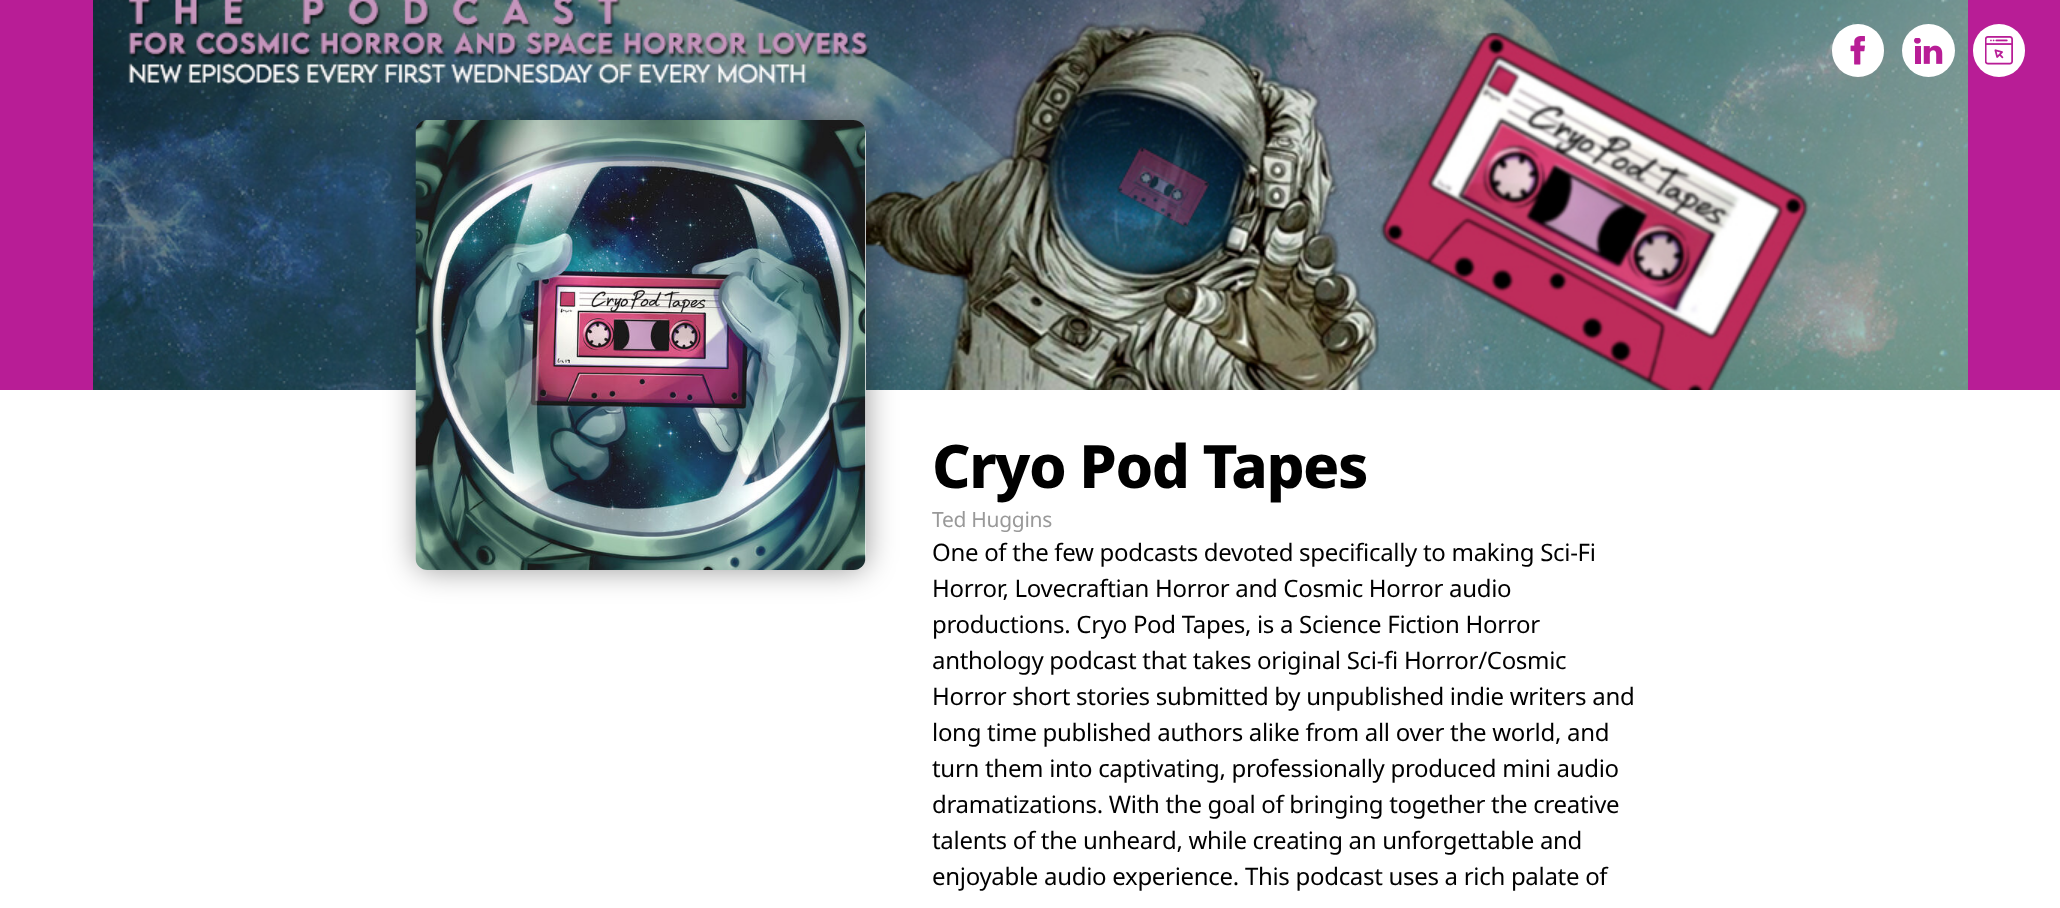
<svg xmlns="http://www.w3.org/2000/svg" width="2060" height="908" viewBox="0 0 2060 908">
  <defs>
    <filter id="blur1" x="-50%" y="-200%" width="200%" height="500%"><feGaussianBlur stdDeviation="15"/></filter>
    <linearGradient id="g1" gradientUnits="userSpaceOnUse" x1="-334" y1="600" x2="1166" y2="600"><stop offset="0.08" stop-color="#ffffff"/><stop offset="0.38" stop-color="#eeeeee"/><stop offset="0.54" stop-color="#ffffff"/></linearGradient>
  </defs>
  <rect width="100%" height="100%" fill="#ffffff"/>
  <rect x="0" y="0" width="2060" height="390" fill="#b81d96"/>
  <image x="93" y="0" width="1875" height="390" href="img1.png"/>
  <rect x="1832" y="24" width="52" height="53" rx="26" fill="#ffffff"/>
  <image x="1850" y="36" width="15" height="29" href="img2.png"/>
  <circle cx="1928.5" cy="50.5" r="26.5" fill="#ffffff"/>
  <image x="1914" y="38" width="29" height="26" href="img3.png"/>
  <rect x="1973" y="24" width="52" height="53" rx="26" fill="#ffffff"/>
  <image x="1985" y="36" width="28" height="29" href="img4.png"/>
  <rect x="416" y="120" width="450" height="450" rx="15" fill="#000000" fill-opacity="0.4" filter="url(#blur1)"/>
  <rect x="416" y="120" width="450" height="450" rx="15" fill="url(#g1)"/>
  <image x="415" y="120" width="451" height="450" href="img5.png"/>
  <text x="932" y="488" font-family="Noto Sans" font-size="60" font-weight="800" letter-spacing="-1.5" fill="#000000">Cryo Pod Tapes</text>
  <text x="932" y="527" font-family="Noto Sans" font-size="21" letter-spacing="-0.3" fill="#999999">Ted Huggins</text>
  <text x="932" y="561" font-family="Noto Sans" font-size="24" letter-spacing="-0.3" fill="#000000">One of the few podcasts devoted specifically to making Sci-Fi</text>
  <text x="932" y="597" font-family="Noto Sans" font-size="24" letter-spacing="-0.3" fill="#000000">Horror, Lovecraftian Horror and Cosmic Horror audio</text>
  <text x="932" y="633" font-family="Noto Sans" font-size="24" letter-spacing="-0.3" fill="#000000">productions. Cryo Pod Tapes, is a Science Fiction Horror</text>
  <text x="932" y="669" font-family="Noto Sans" font-size="24" letter-spacing="-0.3" fill="#000000">anthology podcast that takes original Sci-fi Horror/Cosmic</text>
  <text x="932" y="705" font-family="Noto Sans" font-size="24" letter-spacing="-0.3" fill="#000000">Horror short stories submitted by unpublished indie writers and</text>
  <text x="932" y="741" font-family="Noto Sans" font-size="24" letter-spacing="-0.3" fill="#000000">long time published authors alike from all over the world, and</text>
  <text x="932" y="777" font-family="Noto Sans" font-size="24" letter-spacing="-0.3" fill="#000000">turn them into captivating, professionally produced mini audio</text>
  <text x="932" y="813" font-family="Noto Sans" font-size="24" letter-spacing="-0.3" fill="#000000">dramatizations. With the goal of bringing together the creative</text>
  <text x="932" y="849" font-family="Noto Sans" font-size="24" letter-spacing="-0.3" fill="#000000">talents of the unheard, while creating an unforgettable and</text>
  <text x="932" y="885" font-family="Noto Sans" font-size="24" letter-spacing="-0.3" fill="#000000">enjoyable audio experience. This podcast uses a rich palate of</text>
</svg>
